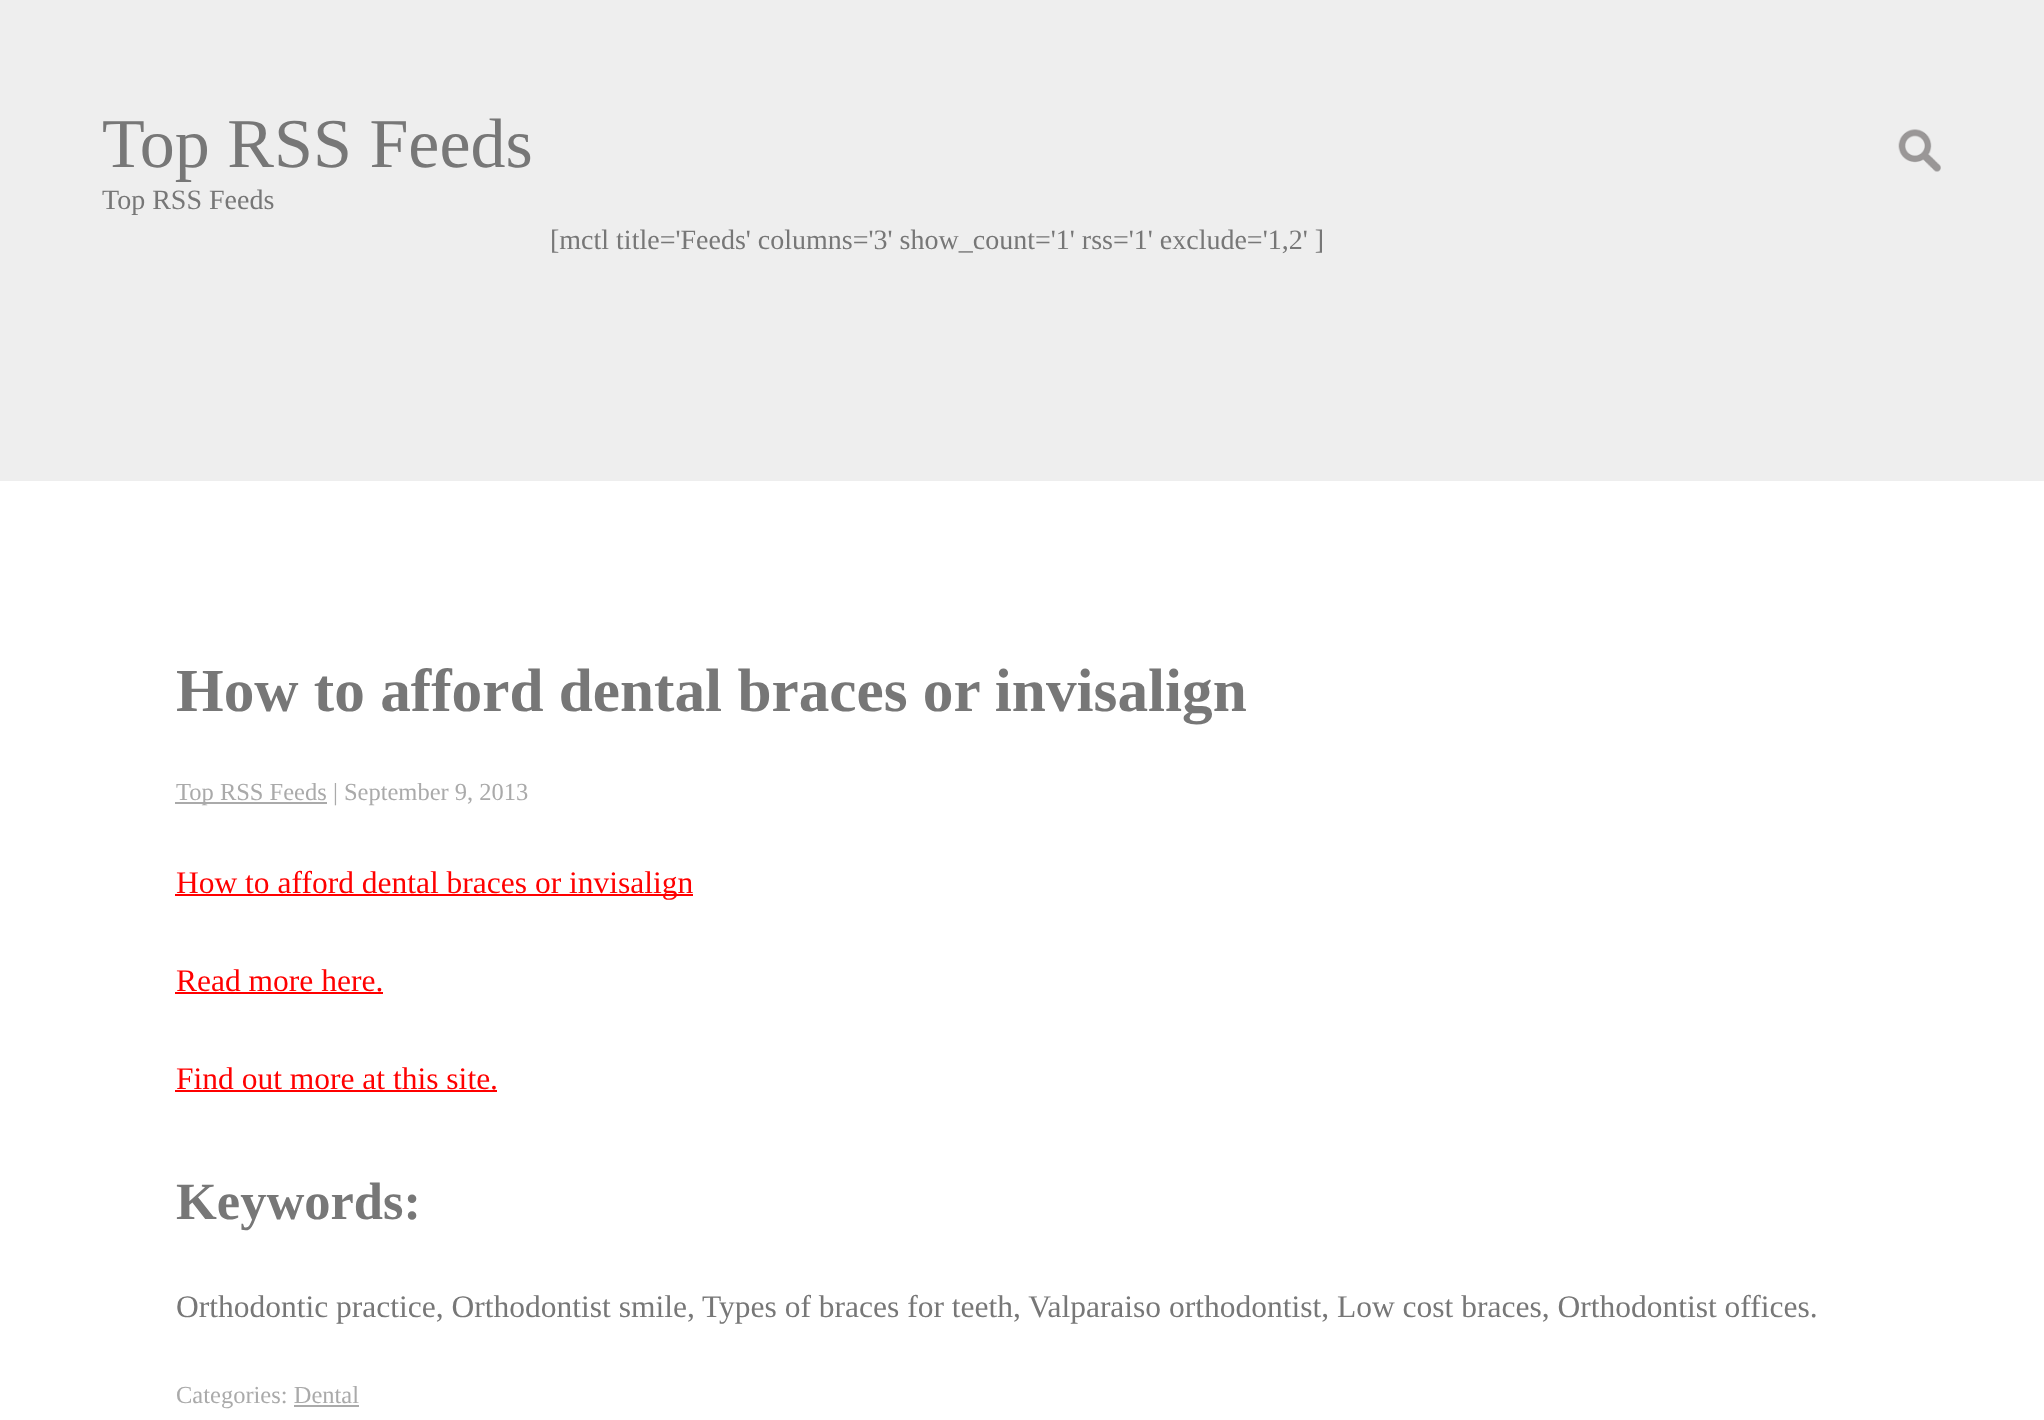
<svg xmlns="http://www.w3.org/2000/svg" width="2044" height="1420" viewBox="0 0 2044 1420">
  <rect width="100%" height="100%" fill="#eeeeee"/>
  <text x="102" y="167" font-family="Liberation Serif" font-size="70" fill="#777777">Top RSS Feeds</text>
  <text x="102" y="209" font-family="Liberation Serif" font-size="28" fill="#777777">Top RSS Feeds</text>
  <image x="1898" y="129" width="43" height="43" href="img1.png"/>
  <text x="550" y="249" font-family="Liberation Serif" font-size="28" fill="#777777">[mctl title='Feeds' columns='3' show_count='1' rss='1' exclude='1,2' ]</text>
  <rect x="0" y="481" width="2044" height="939" fill="#ffffff"/>
  <text x="176" y="711" font-family="Liberation Serif" font-size="61.25" font-weight="bold" fill="#777777">How to afford dental braces or invisalign</text>
  <rect x="175" y="802" width="152" height="2" fill="#aaaaaa"/>
  <text x="176" y="800" font-family="Liberation Serif" font-size="24.5" fill="#aaaaaa">Top RSS Feeds | September 9, 2013</text>
  <rect x="175" y="894" width="518" height="2" fill="#ff0000"/>
  <text x="176" y="893" font-family="Liberation Serif" font-size="31.5" fill="#ff0000">How to afford dental braces or invisalign</text>
  <text x="176" y="991" font-family="Liberation Serif" font-size="31.5" fill="#ff0000">Read more here.</text>
  <rect x="175" y="992" width="208" height="2" fill="#ff0000"/>
  <text x="176" y="1089" font-family="Liberation Serif" font-size="31.5" fill="#ff0000">Find out more at this site.</text>
  <rect x="175" y="1090" width="322" height="2" fill="#ff0000"/>
  <text x="176" y="1219" font-family="Liberation Serif" font-size="52.5" font-weight="bold" fill="#777777">Keywords:</text>
  <text x="176" y="1317" font-family="Liberation Serif" font-size="31.5" fill="#777777">Orthodontic practice, Orthodontist smile, Types of braces for teeth, Valparaiso orthodontist, Low cost braces, Orthodontist offices.</text>
  <text x="176" y="1403" font-family="Liberation Serif" font-size="24.5" fill="#aaaaaa">Categories: Dental</text>
  <rect x="294" y="1405" width="65" height="2" fill="#aaaaaa"/>
</svg>
